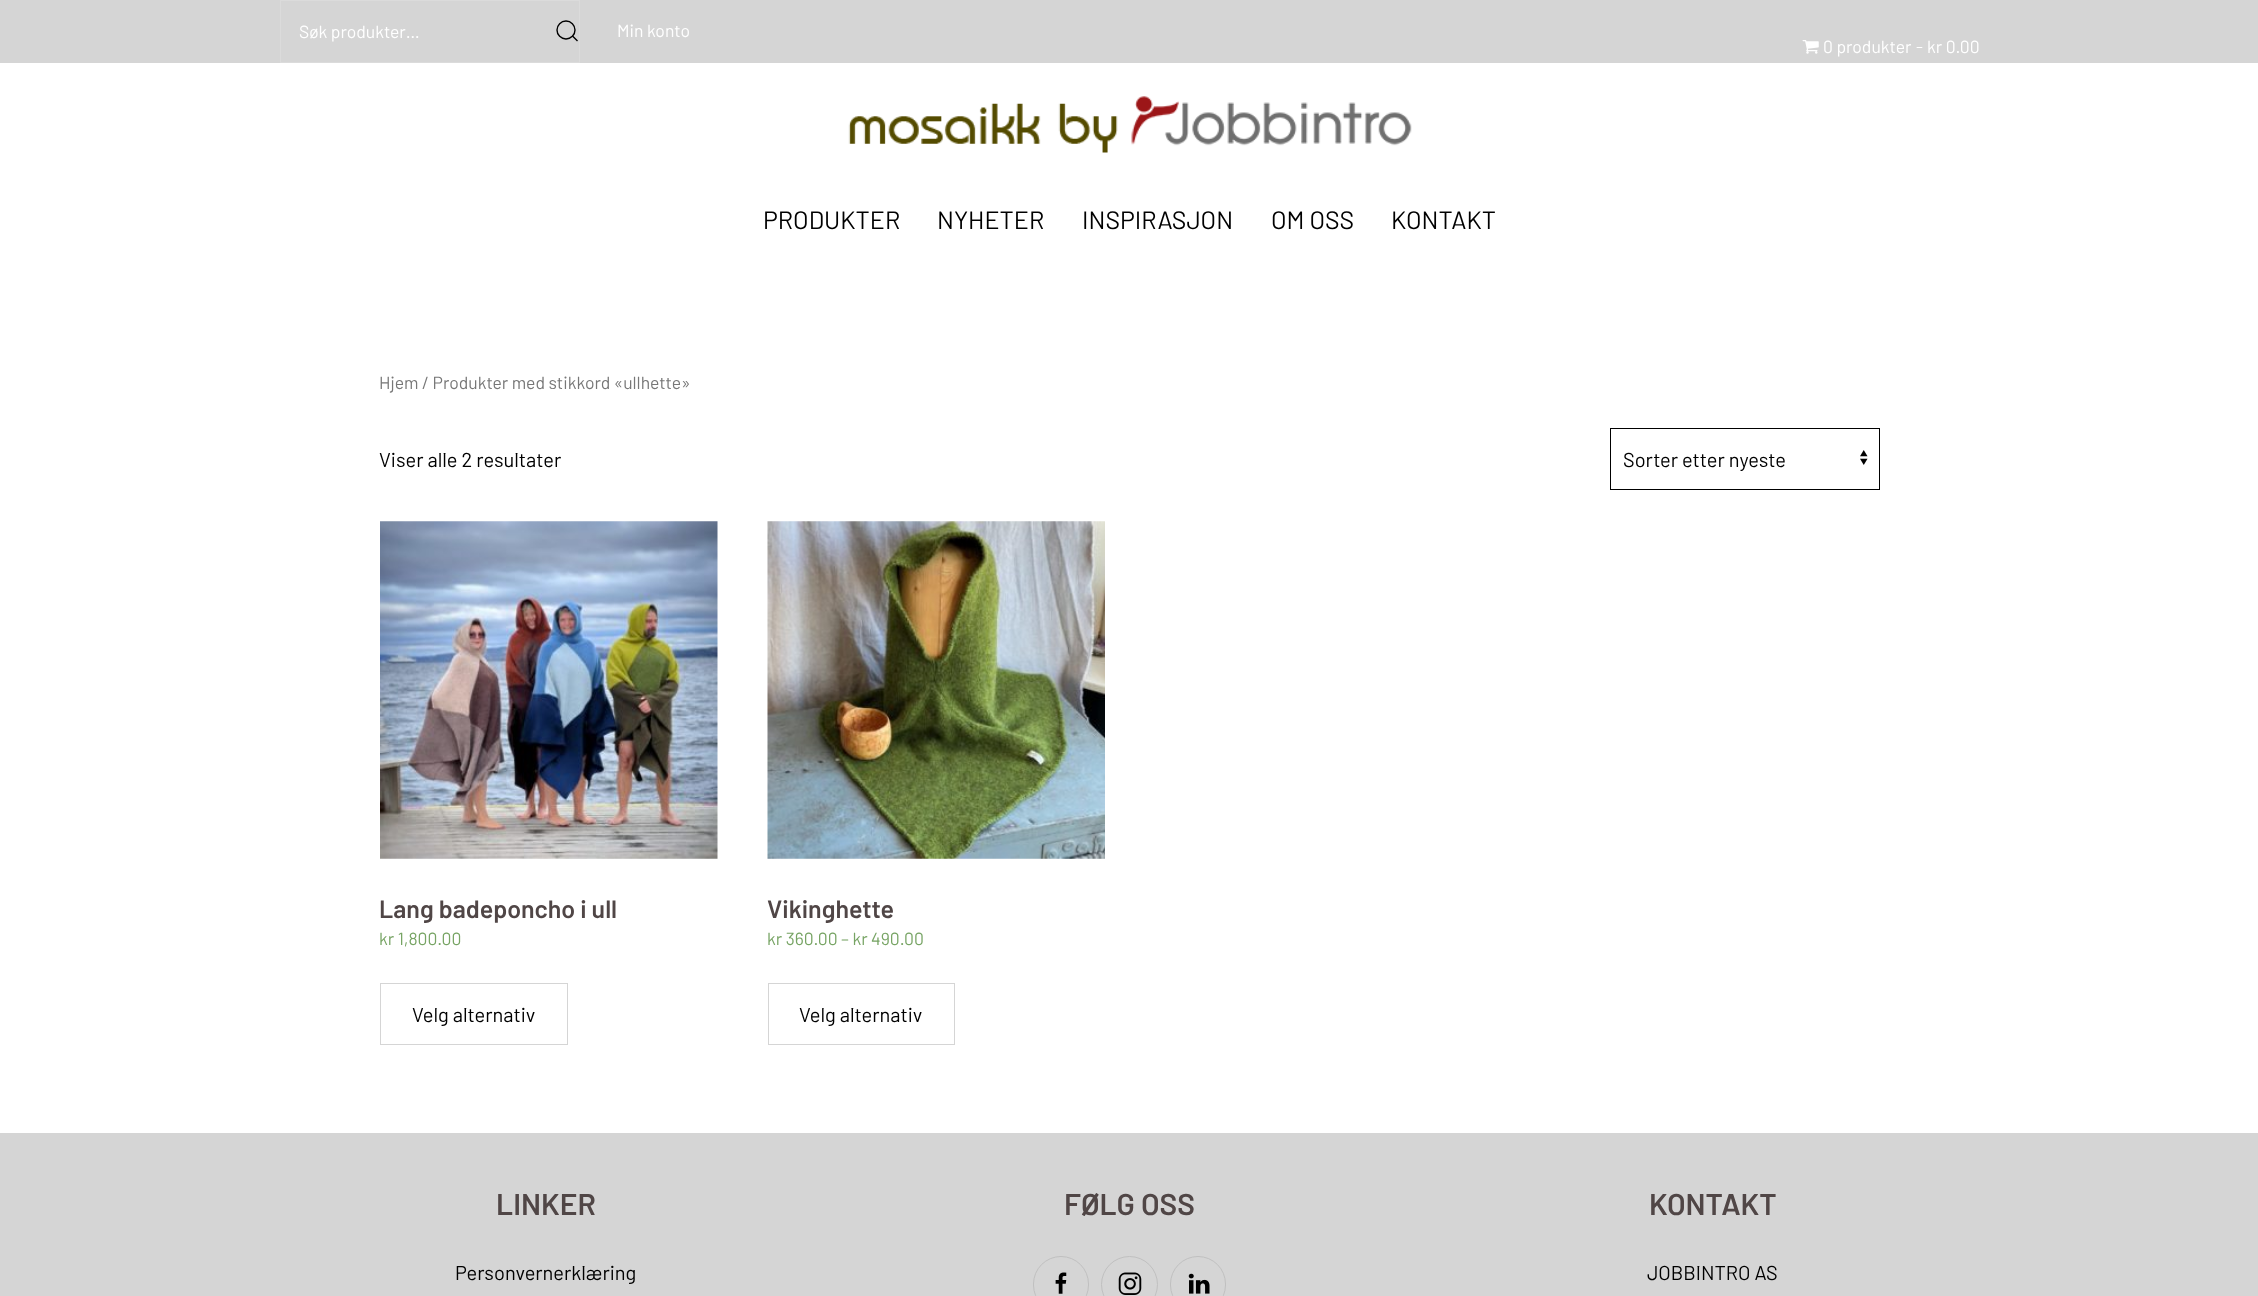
<svg xmlns="http://www.w3.org/2000/svg" width="2258" height="1296" viewBox="0 0 2258 1296">
  <rect width="100%" height="100%" fill="#ffffff"/>
  <rect x="0" y="0" width="2258" height="63" fill="#d5d5d5"/>
  <rect x="280.5" y="0.5" width="299" height="62" fill="none" stroke="#dbdbdb"/>
  <text x="299" y="38" font-family="Barlow" font-size="17.5" fill="#ffffff">Søk produkter…</text>
  <circle cx="566" cy="30" r="9" fill="none" stroke="#000000" stroke-width="1.4"/>
  <path d="M572.5 36L577.5 41Z" fill="none" stroke="#000000" stroke-width="1.4"/>
  <text x="617" y="37" font-family="Barlow" font-size="17.5" fill="#ffffff">Min konto</text>
  <image x="1802" y="40" width="17" height="14" href="img1.png"/>
  <text x="1823" y="53" font-family="Barlow" font-size="17.5" fill="#ffffff">0 produkter</text>
  <text x="1916" y="53" font-family="Barlow" font-size="17.5" fill="#ffffff">-</text>
  <text x="1927" y="53" font-family="Barlow" font-size="17.5" fill="#ffffff">kr 0.00</text>
  <image x="848" y="96" width="564" height="57" href="img2.png"/>
  <text x="763" y="229" font-family="Barlow" font-size="25" fill="#000000">PRODUKTER</text>
  <text x="937" y="229" font-family="Barlow" font-size="25" fill="#000000">NYHETER</text>
  <text x="1082" y="229" font-family="Barlow" font-size="25" fill="#000000">INSPIRASJON</text>
  <text x="1271" y="229" font-family="Barlow" font-size="25" fill="#000000">OM OSS</text>
  <text x="1391" y="229" font-family="Barlow" font-size="25" fill="#000000">KONTAKT</text>
  <text x="379" y="389" font-family="Barlow" font-size="17.5" fill="#777777">Hjem / Produkter med stikkord «ullhette»</text>
  <text x="379" y="467" font-family="Barlow" font-size="20" fill="#000000">Viser alle 2 resultater</text>
  <image x="1860" y="450" width="8" height="15" href="img3.png"/>
  <rect x="1610.5" y="428.5" width="269" height="61" fill="none" stroke="#000000"/>
  <text x="1623" y="467" font-family="Barlow" font-size="20" fill="#000000">Sorter etter nyeste</text>
  <image x="380" y="521" width="338" height="338" href="img4.png"/>
  <text x="379" y="918" font-family="Barlow" font-size="25" font-weight="600" fill="#504646">Lang badeponcho i ull</text>
  <text x="379" y="945" font-family="Barlow" font-size="17.5" fill="#77a464">kr 1,800.00</text>
  <rect x="380.5" y="983.5" width="187" height="61" fill="none" stroke="#d5d5d5"/>
  <text x="412" y="1022" font-family="Barlow" font-size="20" fill="#000000">Velg alternativ</text>
  <image x="767" y="521" width="338" height="338" href="img5.png"/>
  <text x="767" y="918" font-family="Barlow" font-size="25" font-weight="600" fill="#504646">Vikinghette</text>
  <text x="767" y="945" font-family="Barlow" font-size="17.5" fill="#77a464">kr 360.00 – kr 490.00</text>
  <rect x="768.5" y="983.5" width="186" height="61" fill="none" stroke="#d5d5d5"/>
  <text x="799" y="1022" font-family="Barlow" font-size="20" fill="#000000">Velg alternativ</text>
  <rect x="0" y="1133" width="2258" height="163" fill="#d5d5d5"/>
  <text x="496" y="1215" font-family="Barlow" font-size="30" font-weight="600" fill="#504646">LINKER</text>
  <text x="455" y="1280" font-family="Barlow" font-size="20" fill="#000000">Personvernerklæring</text>
  <text x="1064" y="1215" font-family="Barlow" font-size="30" font-weight="600" fill="#504646">FØLG OSS</text>
  <rect x="1033.5" y="1256.5" width="55" height="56" rx="27.5" fill="none" stroke="#c0c0c0"/>
  <image x="1055" y="1272" width="12" height="22" href="img6.png"/>
  <circle cx="1129.5" cy="1284.5" r="28" fill="none" stroke="#c0c0c0"/>
  <image x="1118" y="1272" width="24" height="23" href="img7.png"/>
  <rect x="1170.5" y="1256.5" width="55" height="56" rx="27.5" fill="none" stroke="#c0c0c0"/>
  <image x="1188" y="1273" width="22" height="21" href="img8.png"/>
  <text x="1649" y="1215" font-family="Barlow" font-size="30" font-weight="600" fill="#504646">KONTAKT</text>
  <text x="1647" y="1280" font-family="Barlow" font-size="20" fill="#000000">JOBBINTRO AS</text>
</svg>
